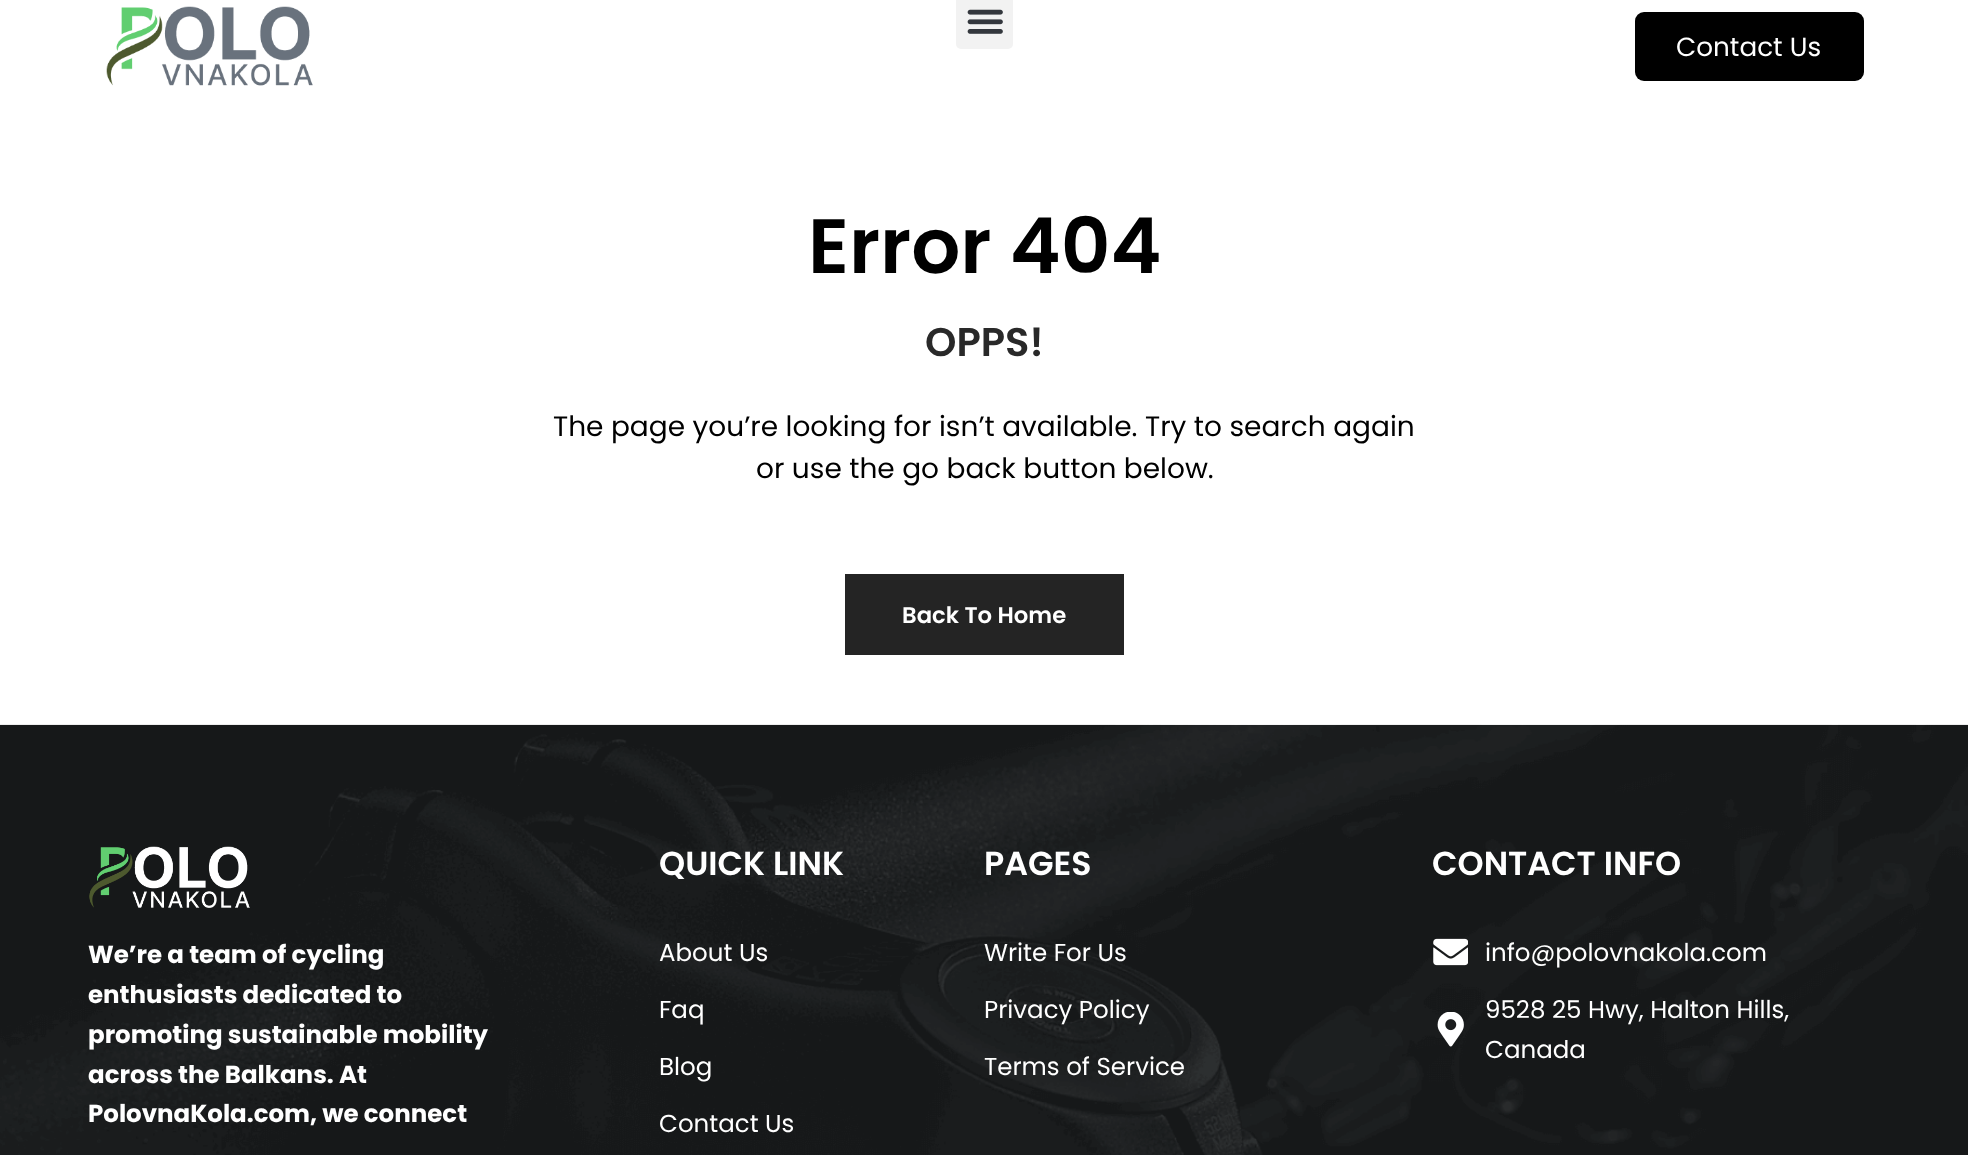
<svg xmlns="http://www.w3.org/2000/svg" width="1968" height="1155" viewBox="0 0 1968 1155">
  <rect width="100%" height="100%" fill="#ffffff"/>
  <image x="106" y="6" width="207" height="80" href="img1.png"/>
  <rect x="956" y="-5" width="57" height="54" rx="5" fill="#f2f2f2"/>
  <image x="967" y="9" width="36" height="25" href="img2.png"/>
  <rect x="1635" y="12" width="229" height="69" rx="9" fill="#000000"/>
  <text x="1676" y="56" font-family="Poppins" font-size="26.25" fill="#ffffff">Contact Us</text>
  <text x="808" y="273" font-family="Poppins" font-size="77" font-weight="600" fill="#000000">Error 404</text>
  <text x="925" y="356" font-family="Poppins" font-size="40" font-weight="600" fill="#292929">OPPS!</text>
  <text x="553" y="436" font-family="Poppins" font-size="28" fill="#000000">The page you’re looking for isn’t available. Try to search again</text>
  <text x="756" y="478" font-family="Poppins" font-size="28" fill="#000000">or use the go back button below.</text>
  <rect x="845" y="574" width="279" height="81" fill="#242424"/>
  <text x="902" y="623" font-family="Poppins" font-size="22.75" font-weight="600" fill="#ffffff">Back To Home</text>
  <rect x="0" y="725" width="1968" height="430" fill="#181a1b"/>
  <image x="0" y="724" width="1968" height="431" href="img3.png"/>
  <image x="89" y="846" width="161" height="62" href="img4.png"/>
  <text x="88" y="963" font-family="Poppins" font-size="24.5" font-weight="bold" fill="#ffffff">We’re a team of cycling</text>
  <text x="88" y="1003" font-family="Poppins" font-size="24.5" font-weight="bold" fill="#ffffff">enthusiasts dedicated to</text>
  <text x="88" y="1043" font-family="Poppins" font-size="24.5" font-weight="bold" fill="#ffffff">promoting sustainable mobility</text>
  <text x="88" y="1083" font-family="Poppins" font-size="24.5" font-weight="bold" fill="#ffffff">across the Balkans. At</text>
  <text x="88" y="1122" font-family="Poppins" font-size="24.5" font-weight="bold" fill="#ffffff">PolovnaKola.com, we connect</text>
  <text x="659" y="875" font-family="Poppins" font-size="33.25" font-weight="600" fill="#ffffff">QUICK LINK</text>
  <text x="659" y="961" font-family="Poppins" font-size="24.5" fill="#ffffff">About Us</text>
  <text x="659" y="1018" font-family="Poppins" font-size="24.5" fill="#ffffff">Faq</text>
  <text x="659" y="1075" font-family="Poppins" font-size="24.5" fill="#ffffff">Blog</text>
  <text x="659" y="1132" font-family="Poppins" font-size="24.5" fill="#ffffff">Contact Us</text>
  <text x="984" y="875" font-family="Poppins" font-size="33.25" font-weight="600" fill="#ffffff">PAGES</text>
  <text x="984" y="961" font-family="Poppins" font-size="24.5" fill="#ffffff">Write For Us</text>
  <text x="984" y="1018" font-family="Poppins" font-size="24.5" fill="#ffffff">Privacy Policy</text>
  <text x="984" y="1075" font-family="Poppins" font-size="24.5" fill="#ffffff">Terms of Service</text>
  <text x="1432" y="875" font-family="Poppins" font-size="33.25" font-weight="600" fill="#ffffff">CONTACT INFO</text>
  <image x="1433" y="938" width="35" height="28" href="img5.png"/>
  <text x="1485" y="961" font-family="Poppins" font-size="24.5" fill="#ffffff">info@polovnakola.com</text>
  <image x="1437" y="1012" width="27" height="35" href="img6.png"/>
  <text x="1485" y="1018" font-family="Poppins" font-size="24.5" fill="#ffffff">9528 25 Hwy, Halton Hills,</text>
  <text x="1485" y="1058" font-family="Poppins" font-size="24.5" fill="#ffffff">Canada</text>
</svg>
